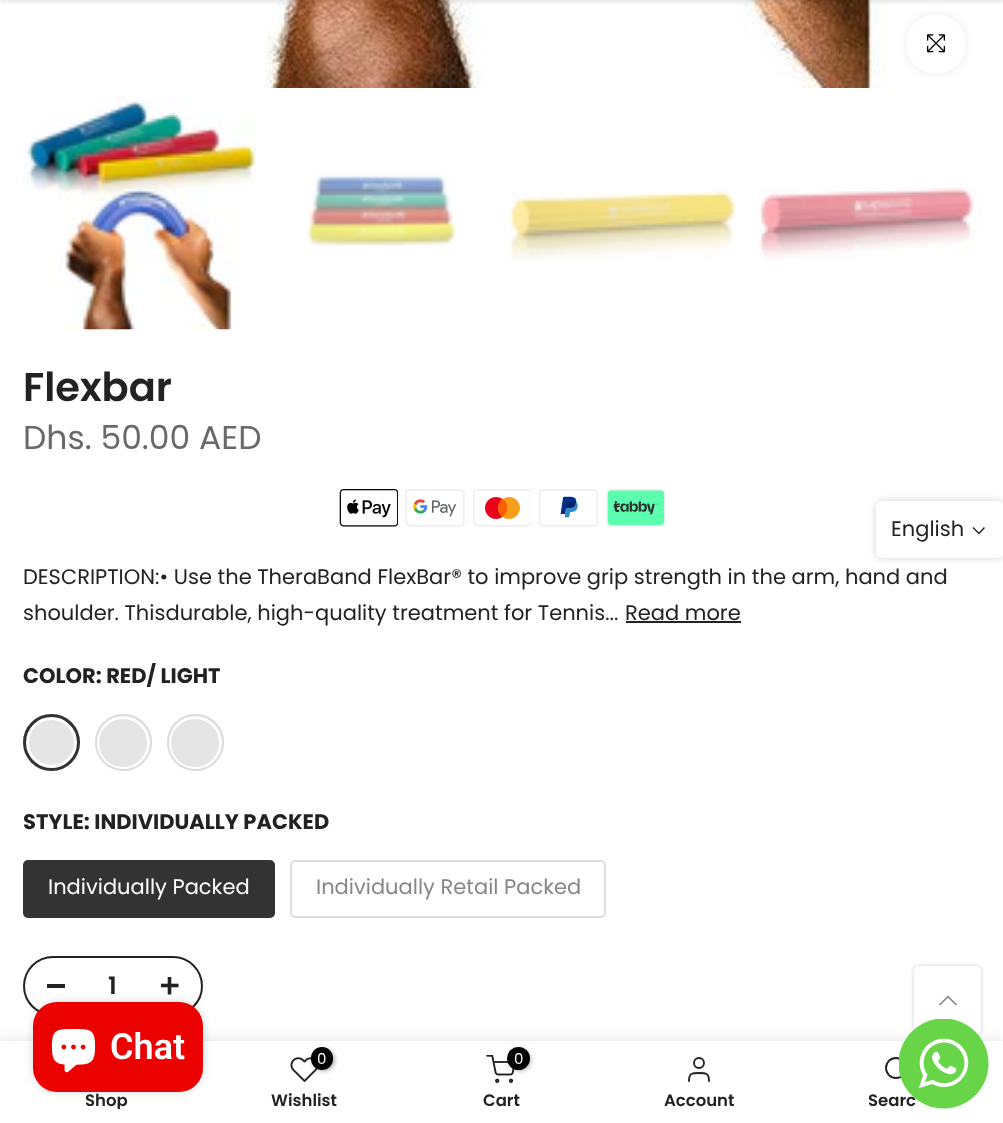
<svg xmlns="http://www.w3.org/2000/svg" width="1003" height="1123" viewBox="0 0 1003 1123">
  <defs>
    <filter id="blur1" x="-50%" y="-200%" width="200%" height="500%"><feGaussianBlur stdDeviation="2"/></filter>
    <filter id="blur2" x="-50%" y="-200%" width="200%" height="500%"><feGaussianBlur stdDeviation="4"/></filter>
    <filter id="blur3" x="-50%" y="-200%" width="200%" height="500%"><feGaussianBlur stdDeviation="7"/></filter>
    <clipPath id="clip1"><rect x="23" y="1092" width="168" height="17"/></clipPath>
  </defs>
  <rect width="100%" height="100%" fill="#ffffff"/>
  <image x="265" y="0" width="622" height="88" href="img1.png"/>
  <rect x="0" y="-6" width="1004" height="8" fill="#000000" fill-opacity="0.1" filter="url(#blur1)"/>
  <rect x="906" y="14" width="60" height="60" rx="30" fill="#000000" fill-opacity="0.09" filter="url(#blur2)"/>
  <circle cx="936" cy="44" r="30" fill="#ffffff"/>
  <image x="927" y="34" width="18" height="19" href="img2.png"/>
  <image x="23" y="95" width="234" height="235" href="img3.png"/>
  <image x="306" y="170" width="154" height="77" href="img4.png"/>
  <image x="508" y="190" width="229" height="73" href="img5.png"/>
  <image x="757" y="187" width="224" height="73" href="img6.png"/>
  <text x="23" y="401" font-family="Poppins" font-size="40" font-weight="600" fill="#222222">Flexbar</text>
  <text x="23" y="449" font-family="Poppins" font-size="33" fill="#696969">Dhs. 50.00 AED</text>
  <image x="339" y="489" width="59" height="38" href="img7.png"/>
  <image x="405" y="489" width="60" height="38" href="img8.png"/>
  <image x="473" y="489" width="58" height="38" href="img9.png"/>
  <image x="539" y="489" width="59" height="38" href="img10.png"/>
  <image x="606" y="489" width="59" height="38" href="img11.png"/>
  <text x="23" y="584" font-family="Poppins" font-size="21" fill="#222222">DESCRIPTION:• Use the TheraBand FlexBar® to improve grip strength in the arm, hand and</text>
  <text x="23" y="620" font-family="Poppins" font-size="21" fill="#222222">shoulder. Thisdurable, high-quality treatment for Tennis...</text>
  <text x="625" y="620" font-family="Poppins" font-size="21" fill="#222222">Read more</text>
  <rect x="626" y="621" width="115" height="2" fill="#222222"/>
  <text x="23" y="683" font-family="Poppins" font-size="21" font-weight="bold" fill="#222222">COLOR: RED/ LIGHT</text>
  <circle cx="51.5" cy="742.5" r="28.5" fill="#e5e5e5"/>
  <circle cx="51.5" cy="742.5" r="24" fill="none" stroke="#ffffff" stroke-width="3"/>
  <circle cx="51.5" cy="742.5" r="27" fill="none" stroke="#333333" stroke-width="3"/>
  <circle cx="123.5" cy="742.5" r="28.5" fill="#e5e5e5"/>
  <circle cx="123" cy="743" r="25.5" fill="none" stroke="#ffffff" stroke-width="3"/>
  <circle cx="123.5" cy="742.5" r="27.5" fill="none" stroke="#dddddd" stroke-width="2"/>
  <circle cx="195.5" cy="742.5" r="28.5" fill="#e5e5e5"/>
  <circle cx="195" cy="743" r="25.5" fill="none" stroke="#ffffff" stroke-width="3"/>
  <circle cx="195.5" cy="742.5" r="27.5" fill="none" stroke="#dddddd" stroke-width="2"/>
  <text x="23" y="829" font-family="Poppins" font-size="21" font-weight="bold" fill="#222222">STYLE: INDIVIDUALLY PACKED</text>
  <rect x="24" y="861" width="250" height="56" rx="4" fill="#333333" stroke="#333333" stroke-width="2"/>
  <text x="48" y="894" font-family="Poppins" font-size="21" fill="#ffffff">Individually Packed</text>
  <rect x="291" y="861" width="314" height="56" rx="4" fill="none" stroke="#dddddd" stroke-width="2"/>
  <text x="316" y="894" font-family="Poppins" font-size="21" fill="#878787">Individually Retail Packed</text>
  <rect x="24" y="957" width="178" height="58" rx="29" fill="none" stroke="#222222" stroke-width="2"/>
  <rect x="47" y="984" width="18" height="4" fill="#222222"/>
  <text x="108" y="994" font-family="Poppins" font-size="24" font-weight="600" fill="#222222">1</text>
  <image x="161" y="977" width="18" height="18" href="img12.png"/>
  <rect x="876" y="501" width="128" height="57" rx="6" fill="#000000" fill-opacity="0.17" filter="url(#blur2)"/>
  <rect x="876" y="501" width="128" height="57" rx="6" fill="#ffffff"/>
  <text x="891" y="536" font-family="Poppins" font-size="21" fill="#222222">English</text>
  <path d="M984 528L979 533.5L973.5 528" fill="none" stroke="#222222" stroke-width="1.4" stroke-linecap="square"/>
  <rect x="914" y="966" width="67" height="68" rx="5" fill="#000000" fill-opacity="0.2" filter="url(#blur1)"/>
  <rect x="0" y="1041" width="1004" height="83" fill="#000000" fill-opacity="0.12" filter="url(#blur3)"/>
  <rect x="914" y="966" width="67" height="68" rx="5" fill="#ffffff"/>
  <image x="939" y="995" width="18" height="11" href="img13.png"/>
  <rect x="0" y="1041" width="1003" height="82" fill="#ffffff"/>
  <rect x="33" y="1002" width="170" height="90" rx="24" fill="#000000" fill-opacity="0.15" filter="url(#blur2)"/>
  <rect x="33" y="1002" width="170" height="90" rx="24" fill="#ec0101"/>
  <image x="51" y="1029" width="45" height="44" href="img14.png"/>
  <text x="110" y="1059" font-family="Roboto" font-size="36" font-weight="600" fill="#ffffff">Chat</text>
  <circle cx="896" cy="1068" r="10" fill="none" stroke="#222222" stroke-width="1.9"/>
  <text x="868" y="1106" font-family="Poppins" font-size="16.5" font-weight="600" fill="#222222">Searc</text>
  <image x="899" y="1019" width="90" height="90" href="img15.png"/>
  <g clip-path="url(#clip1)">
    <text x="85" y="1106" font-family="Poppins" font-size="16.5" font-weight="600" fill="#222222">Shop</text>
  </g>
  <image x="290" y="1057" width="28" height="25" href="img16.png"/>
  <rect x="312" y="1049" width="23" height="22" rx="11" fill="#000000" fill-opacity="0.3" filter="url(#blur1)"/>
  <rect x="311" y="1047" width="22" height="23" rx="11" fill="#000000"/>
  <text x="317" y="1064" font-family="Poppins" font-size="15" fill="#ffffff">0</text>
  <text x="271" y="1106" font-family="Poppins" font-size="16.5" font-weight="600" fill="#222222">Wishlist</text>
  <image x="486" y="1055" width="29" height="28" href="img17.png"/>
  <rect x="509" y="1049" width="22" height="22" rx="11" fill="#000000" fill-opacity="0.3" filter="url(#blur1)"/>
  <circle cx="518.5" cy="1058.5" r="11.5" fill="#000000"/>
  <text x="514" y="1064" font-family="Poppins" font-size="15" fill="#ffffff">0</text>
  <text x="483" y="1106" font-family="Poppins" font-size="16.5" font-weight="600" fill="#222222">Cart</text>
  <circle cx="699" cy="1063" r="5" fill="none" stroke="#222222" stroke-width="1.9"/>
  <path d="M709 1081C709 1073 706 1073 699 1073C692 1073 689 1073 689 1081" fill="none" stroke="#222222" stroke-width="1.9" stroke-linecap="round" stroke-linejoin="round"/>
  <text x="664" y="1106" font-family="Poppins" font-size="16.5" font-weight="600" fill="#222222">Account</text>
</svg>
